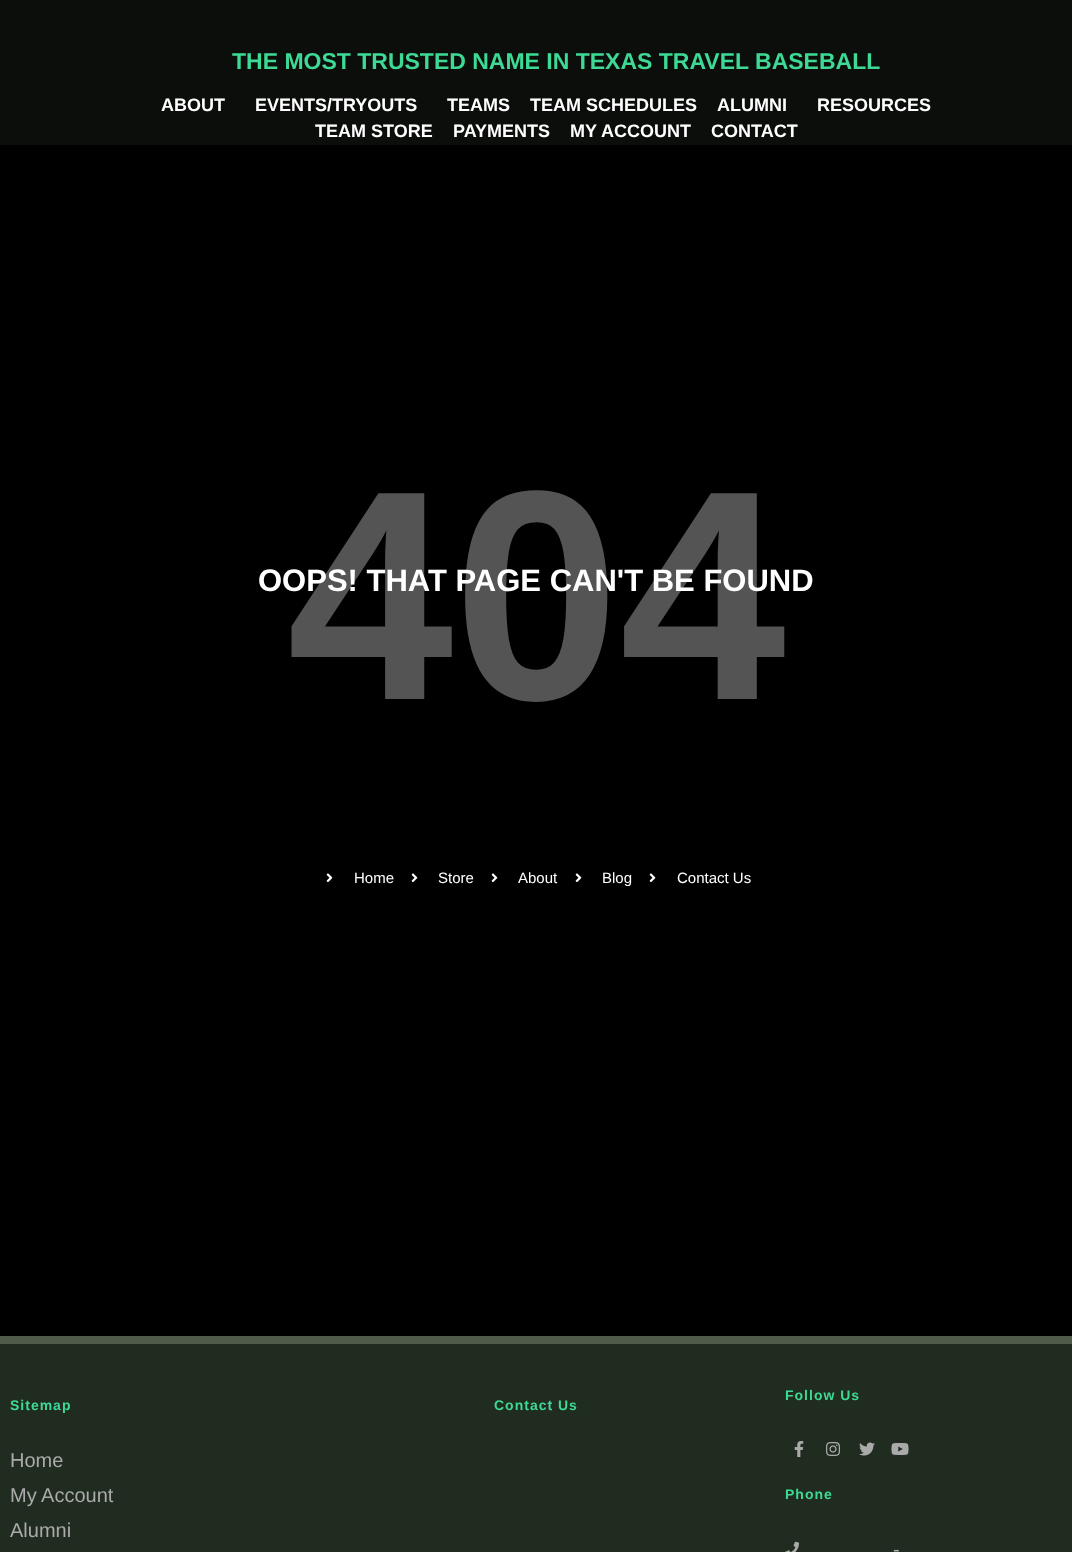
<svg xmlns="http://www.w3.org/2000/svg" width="1072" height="1552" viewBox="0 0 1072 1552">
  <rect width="100%" height="100%" fill="#202c20"/>
  <rect x="0" y="0" width="1072" height="145" fill="#0b0e0b"/>
  <text x="232" y="69" font-family="Liberation Sans" font-size="23" font-weight="bold" fill="#3dd995">THE MOST TRUSTED NAME IN TEXAS TRAVEL BASEBALL</text>
  <text x="161" y="111" font-family="Liberation Sans" font-size="18" font-weight="bold" fill="#ffffff">ABOUT</text>
  <text x="255" y="111" font-family="Liberation Sans" font-size="18" font-weight="bold" fill="#ffffff">EVENTS/TRYOUTS</text>
  <text x="447" y="111" font-family="Liberation Sans" font-size="18" font-weight="bold" fill="#ffffff">TEAMS</text>
  <text x="530" y="111" font-family="Liberation Sans" font-size="18" font-weight="bold" fill="#ffffff">TEAM SCHEDULES</text>
  <text x="717" y="111" font-family="Liberation Sans" font-size="18" font-weight="bold" fill="#ffffff">ALUMNI</text>
  <text x="817" y="111" font-family="Liberation Sans" font-size="18" font-weight="bold" fill="#ffffff">RESOURCES</text>
  <text x="315" y="137" font-family="Liberation Sans" font-size="18" font-weight="bold" fill="#ffffff">TEAM STORE</text>
  <text x="453" y="137" font-family="Liberation Sans" font-size="18" font-weight="bold" fill="#ffffff">PAYMENTS</text>
  <text x="570" y="137" font-family="Liberation Sans" font-size="18" font-weight="bold" fill="#ffffff">MY ACCOUNT</text>
  <text x="711" y="137" font-family="Liberation Sans" font-size="18" font-weight="bold" fill="#ffffff">CONTACT</text>
  <rect x="0" y="145" width="1072" height="1191" fill="#000000"/>
  <text x="287" y="699" font-family="Liberation Sans" font-size="299" font-weight="bold" fill="#545454">404</text>
  <text x="258" y="591" font-family="Liberation Sans" font-size="31" font-weight="bold" fill="#ffffff">OOPS! THAT PAGE CAN'T BE FOUND</text>
  <image x="326" y="873" width="7" height="10" href="img1.png"/>
  <text x="354" y="883" font-family="Liberation Sans" font-size="15" fill="#ffffff">Home</text>
  <image x="411" y="873" width="7" height="10" href="img1.png"/>
  <text x="438" y="883" font-family="Liberation Sans" font-size="15" fill="#ffffff">Store</text>
  <image x="491" y="873" width="7" height="10" href="img1.png"/>
  <text x="518" y="883" font-family="Liberation Sans" font-size="15" fill="#ffffff">About</text>
  <image x="575" y="873" width="7" height="10" href="img1.png"/>
  <text x="602" y="883" font-family="Liberation Sans" font-size="15" fill="#ffffff">Blog</text>
  <image x="649" y="873" width="7" height="10" href="img1.png"/>
  <text x="677" y="883" font-family="Liberation Sans" font-size="15" fill="#ffffff">Contact Us</text>
  <rect x="0" y="1336" width="1072" height="8" fill="#4e5c49"/>
  <text x="10" y="1410" font-family="Liberation Sans" font-size="14" font-weight="bold" letter-spacing="1" fill="#3dd995">Sitemap</text>
  <text x="10" y="1467" font-family="Liberation Sans" font-size="20" fill="#aaaaaa">Home</text>
  <text x="10" y="1502" font-family="Liberation Sans" font-size="20" fill="#aaaaaa">My Account</text>
  <text x="10" y="1537" font-family="Liberation Sans" font-size="20" fill="#aaaaaa">Alumni</text>
  <text x="494" y="1410" font-family="Liberation Sans" font-size="14" font-weight="bold" letter-spacing="1" fill="#3dd995">Contact Us</text>
  <text x="785" y="1400" font-family="Liberation Sans" font-size="14" font-weight="bold" letter-spacing="1" fill="#3dd995">Follow Us</text>
  <image x="794" y="1441" width="10" height="16" href="img2.png"/>
  <image x="826" y="1442" width="14" height="14" href="img3.png"/>
  <image x="859" y="1442" width="16" height="14" href="img4.png"/>
  <image x="891" y="1443" width="18" height="12" href="img5.png"/>
  <text x="785" y="1499" font-family="Liberation Sans" font-size="14" font-weight="bold" letter-spacing="1" fill="#3dd995">Phone</text>
  <image x="785" y="1541" width="14" height="11" href="img6.png"/>
  <text x="893" y="1556" font-family="Liberation Sans" font-size="20" fill="#aaaaaa">-</text>
</svg>
